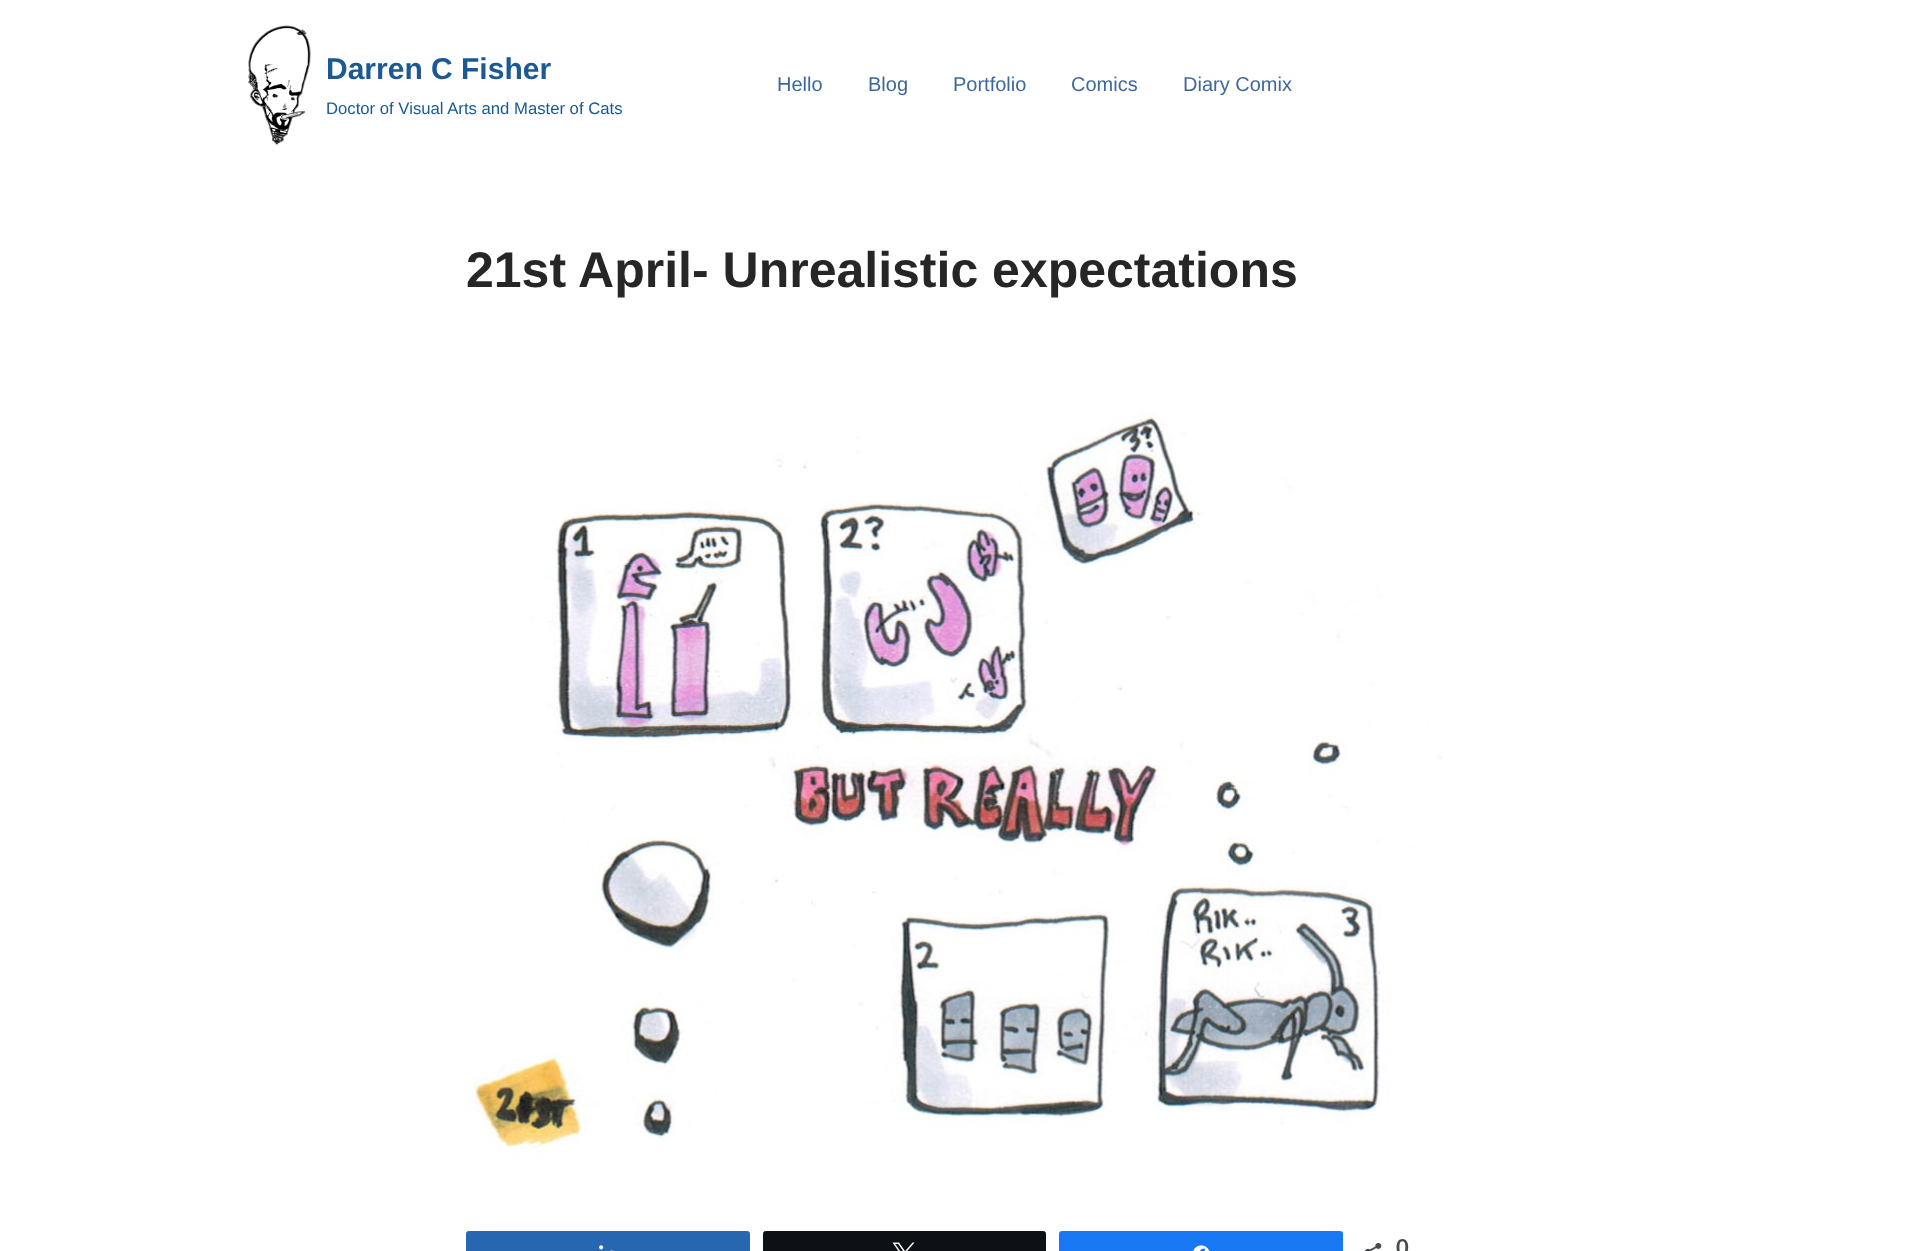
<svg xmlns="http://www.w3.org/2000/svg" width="1917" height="1251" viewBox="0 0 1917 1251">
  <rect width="100%" height="100%" fill="#ffffff"/>
  <image x="248" y="25" width="63" height="120" href="img1.png"/>
  <text x="326" y="79" font-family="Liberation Sans" font-size="30" font-weight="bold" fill="#1a5994">Darren C Fisher</text>
  <text x="326" y="114" font-family="Liberation Sans" font-size="16.7" fill="#1a5994">Doctor of Visual Arts and Master of Cats</text>
  <text x="777" y="91" font-family="Liberation Sans" font-size="20" fill="#3e689c">Hello</text>
  <text x="868" y="91" font-family="Liberation Sans" font-size="20" fill="#3e689c">Blog</text>
  <text x="953" y="91" font-family="Liberation Sans" font-size="20" fill="#3e689c">Portfolio</text>
  <text x="1071" y="91" font-family="Liberation Sans" font-size="20" fill="#3e689c">Comics</text>
  <text x="1183" y="91" font-family="Liberation Sans" font-size="20" fill="#3e689c">Diary Comix</text>
  <text x="466" y="287" font-family="Liberation Sans" font-size="50" font-weight="bold" fill="#272626">21st April- Unrealistic expectations</text>
  <image x="466" y="412" width="977" height="746" href="img2.png"/>
  <rect x="466.5" y="1231.5" width="283" height="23" rx="2" fill="#2767b1" stroke="#2767b1"/>
  <image x="599" y="1245" width="15" height="6" href="img3.png"/>
  <rect x="763.5" y="1231.5" width="282" height="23" rx="2" fill="#0d1014" stroke="#0d1014"/>
  <image x="892" y="1242" width="23" height="9" href="img4.png"/>
  <rect x="1059.5" y="1231.5" width="283" height="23" rx="2" fill="#1877f2" stroke="#1877f2"/>
  <image x="1193" y="1245" width="17" height="6" href="img5.png"/>
  <image x="1365" y="1243" width="17" height="8" href="img6.png"/>
  <text x="1396" y="1255" font-family="Lato" font-size="22" font-weight="bold" fill="#474b4d">0</text>
</svg>
